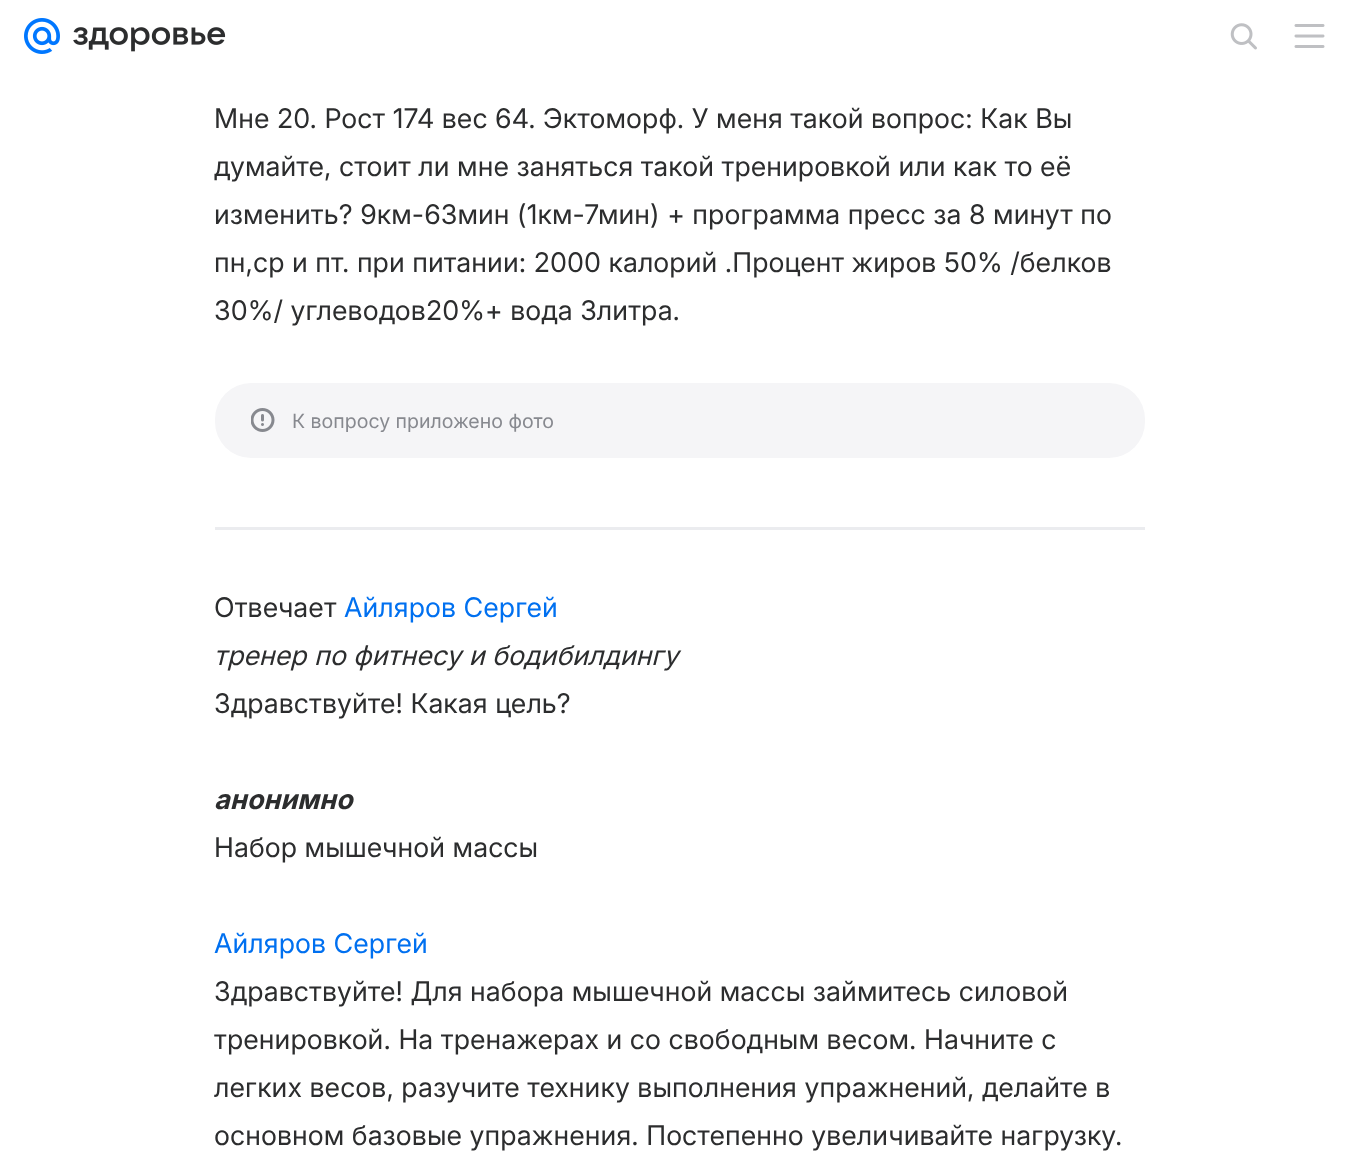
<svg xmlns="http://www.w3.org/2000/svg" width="1357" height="1157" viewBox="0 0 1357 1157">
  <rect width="100%" height="100%" fill="#ffffff"/>
  <image x="24" y="18" width="36" height="36" href="img1.png"/>
  <image x="73" y="27" width="153" height="25" href="img2.png"/>
  <image x="1230" y="23" width="27" height="27" href="img3.png"/>
  <image x="1294" y="24" width="31" height="24" href="img4.png"/>
  <text x="214" y="128" font-family="Inter" font-size="27" letter-spacing="0.08" fill="#2c2d2e">Мне 20. Рост 174 вес 64. Эктоморф. У меня такой вопрос: Как Вы</text>
  <text x="214" y="176" font-family="Inter" font-size="27" letter-spacing="0.08" fill="#2c2d2e">думайте, стоит ли мне заняться такой тренировкой или как то её</text>
  <text x="214" y="224" font-family="Inter" font-size="27" letter-spacing="0.08" fill="#2c2d2e">изменить? 9км-63мин (1км-7мин) + программа пресс за 8 минут по</text>
  <text x="214" y="272" font-family="Inter" font-size="27" letter-spacing="0.08" fill="#2c2d2e">пн,ср и пт. при питании: 2000 калорий .Процент жиров 50% /белков</text>
  <text x="214" y="320" font-family="Inter" font-size="27" letter-spacing="0.08" fill="#2c2d2e">30%/ углеводов20%+ вода 3литра.</text>
  <rect x="215" y="383" width="930" height="75" rx="36" fill="#f5f5f7"/>
  <image x="251" y="408" width="24" height="24" href="img5.png"/>
  <text x="292" y="428" font-family="'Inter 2'" font-size="19.5" fill="#87898f">К вопросу приложено фото</text>
  <rect x="215" y="527" width="930" height="3" fill="#ebecef"/>
  <text x="214" y="617" font-family="Inter" font-size="27" letter-spacing="0.08" fill="#2c2d2e">Отвечает</text>
  <text x="344" y="617" font-family="Inter" font-size="27" letter-spacing="0.08" fill="#0070f0">Айляров Сергей</text>
  <text x="214" y="665" font-family="Inter" font-size="27" font-style="italic" letter-spacing="0.08" fill="#2c2d2e">тренер по фитнесу и бодибилдингу</text>
  <text x="214" y="713" font-family="Inter" font-size="27" letter-spacing="0.08" fill="#2c2d2e">Здравствуйте! Какая цель?</text>
  <text x="214" y="809" font-family="Inter" font-size="27" font-weight="bold" font-style="italic" letter-spacing="0.08" fill="#2c2d2e">анонимно</text>
  <text x="214" y="857" font-family="Inter" font-size="27" letter-spacing="0.08" fill="#2c2d2e">Набор мышечной массы</text>
  <text x="214" y="953" font-family="Inter" font-size="27" letter-spacing="0.08" fill="#0070f0">Айляров Сергей</text>
  <text x="214" y="1001" font-family="Inter" font-size="27" letter-spacing="0.08" fill="#2c2d2e">Здравствуйте! Для набора мышечной массы займитесь силовой</text>
  <text x="214" y="1049" font-family="Inter" font-size="27" letter-spacing="0.08" fill="#2c2d2e">тренировкой. На тренажерах и со свободным весом. Начните с</text>
  <text x="214" y="1097" font-family="Inter" font-size="27" letter-spacing="0.08" fill="#2c2d2e">легких весов, разучите технику выполнения упражнений, делайте в</text>
  <text x="214" y="1145" font-family="Inter" font-size="27" letter-spacing="0.08" fill="#2c2d2e">основном базовые упражнения. Постепенно увеличивайте нагрузку.</text>
</svg>
